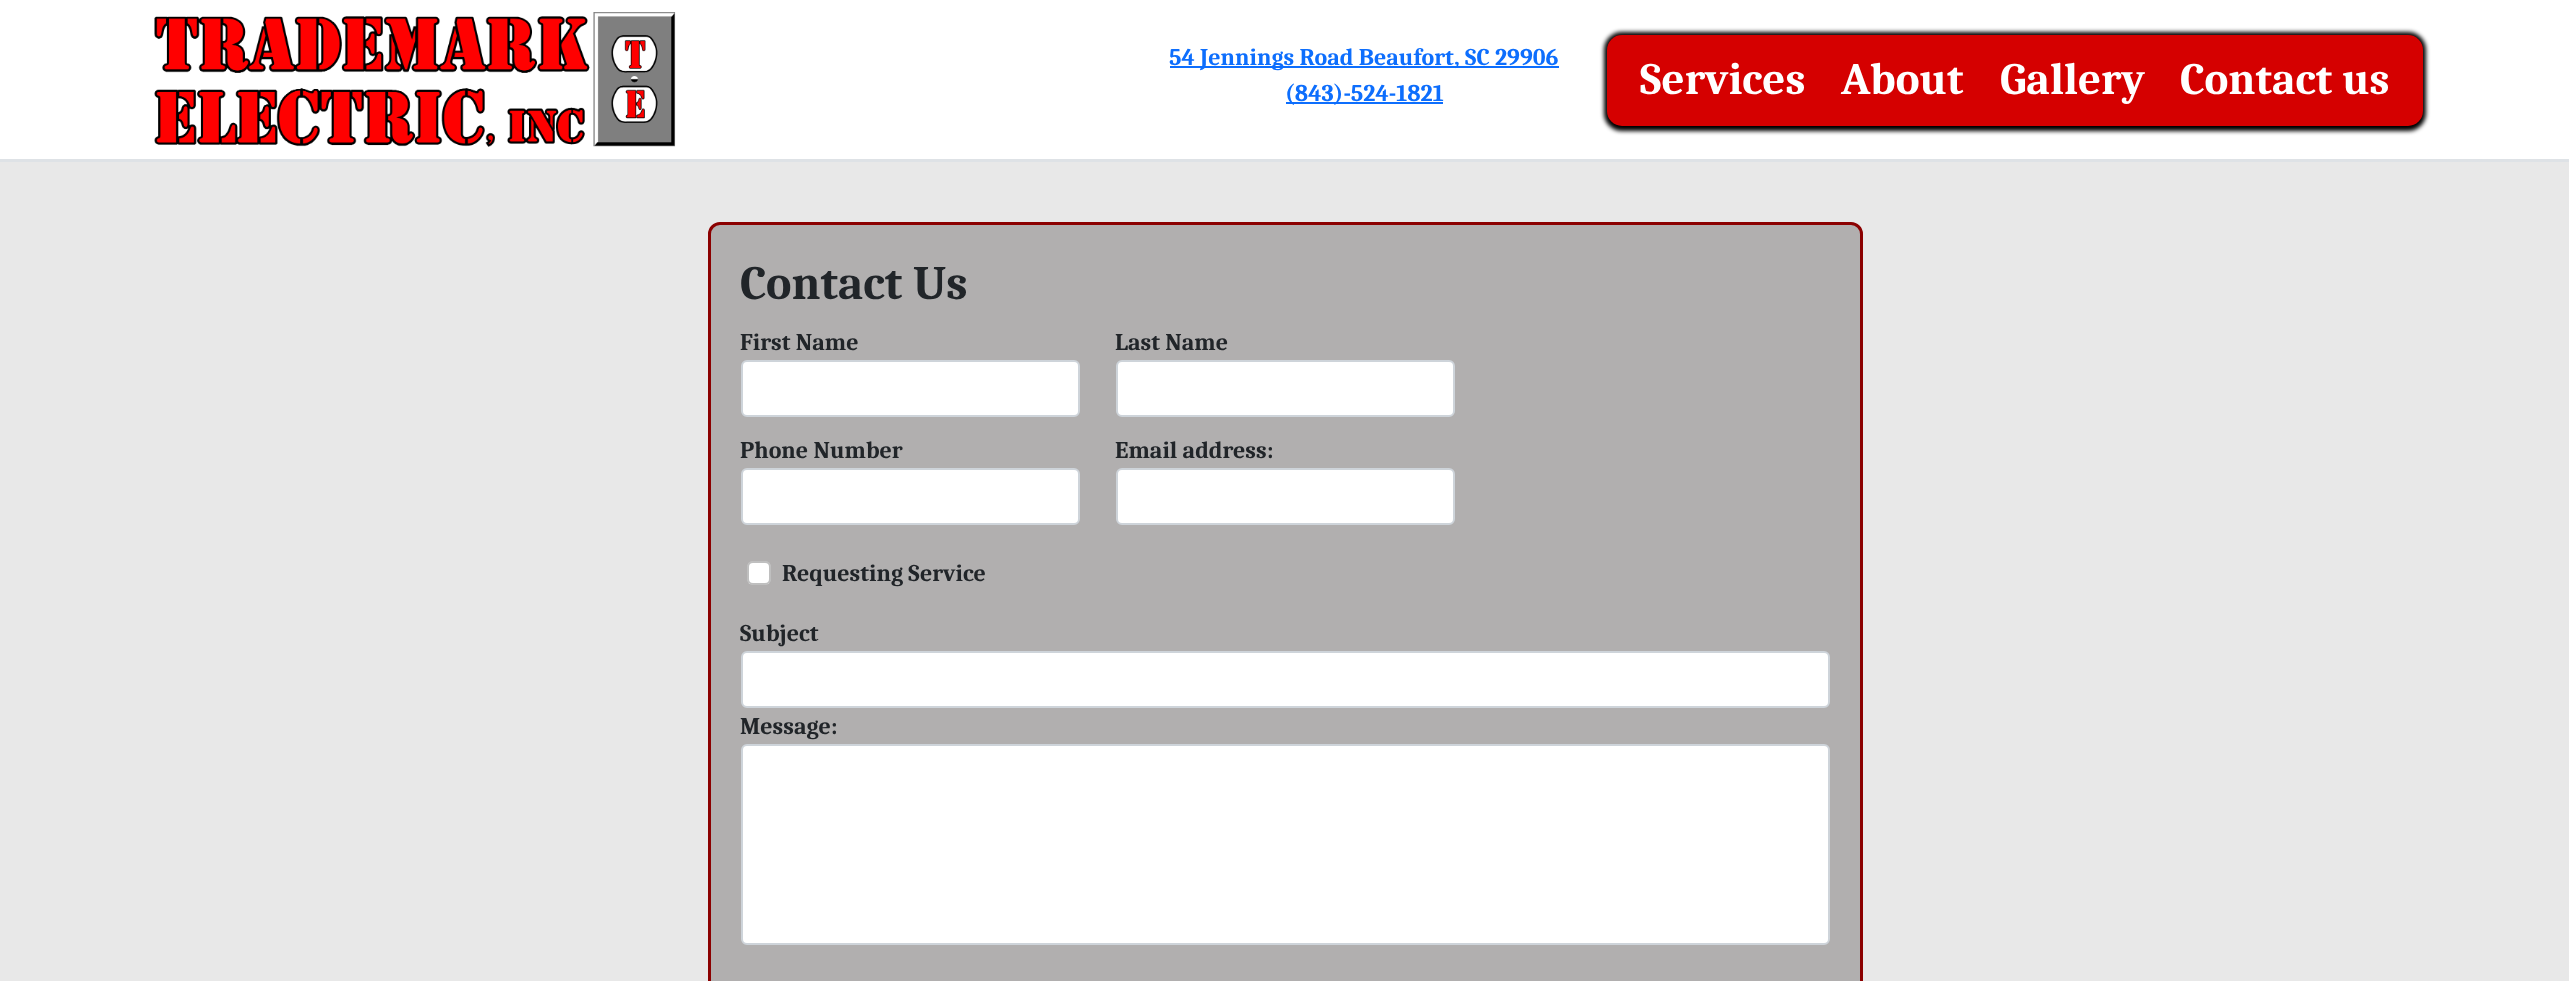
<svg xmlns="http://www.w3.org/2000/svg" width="2569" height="981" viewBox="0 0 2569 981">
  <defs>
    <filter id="blur1" x="-50%" y="-200%" width="200%" height="500%"><feGaussianBlur stdDeviation="2"/></filter>
  </defs>
  <rect width="100%" height="100%" fill="#e8e8e8"/>
  <rect x="0" y="0" width="2569" height="159" fill="#ffffff"/>
  <rect x="0" y="159" width="2569" height="3" fill="#dee2e6"/>
  <image x="154" y="12" width="522" height="135" href="img1.png"/>
  <rect x="1170" y="66" width="389" height="2" fill="#0d6efd"/>
  <text x="1169" y="65" font-family="Caladea" font-size="24" font-weight="bold" fill="#0d6efd">54 Jennings Road Beaufort, SC 29906</text>
  <rect x="1286" y="102" width="157" height="2" fill="#0d6efd"/>
  <text x="1285" y="101" font-family="Caladea" font-size="24" font-weight="bold" fill="#0d6efd">(843)-524-1821</text>
  <rect x="1604" y="32" width="822" height="99" rx="18" fill="#000000" filter="url(#blur1)"/>
  <rect x="1607" y="35" width="816" height="91" rx="15" fill="#d50000"/>
  <text x="1640" y="94" font-family="Caladea" font-size="45" font-weight="bold" fill="#ffffff">Services</text>
  <text x="1841" y="94" font-family="Caladea" font-size="45" font-weight="bold" fill="#ffffff">About</text>
  <text x="2000" y="94" font-family="Caladea" font-size="45" font-weight="bold" fill="#ffffff">Gallery</text>
  <text x="2180" y="94" font-family="Caladea" font-size="45" font-weight="bold" fill="#ffffff">Contact us</text>
  <rect x="709.5" y="223.5" width="1152" height="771" rx="10.5" fill="#b1afaf" stroke="#8b0000" stroke-width="3"/>
  <text x="740" y="299" font-family="Caladea" font-size="48" font-weight="bold" fill="#212529">Contact Us</text>
  <text x="740" y="350" font-family="Caladea" font-size="24" font-weight="bold" fill="#212529">First Name</text>
  <rect x="742" y="361" width="337" height="55" rx="5" fill="#ffffff" stroke="#ced4da" stroke-width="2"/>
  <text x="1115" y="350" font-family="Caladea" font-size="24" font-weight="bold" fill="#212529">Last Name</text>
  <rect x="1117" y="361" width="337" height="55" rx="5" fill="#ffffff" stroke="#ced4da" stroke-width="2"/>
  <text x="740" y="458" font-family="Caladea" font-size="24" font-weight="bold" fill="#212529">Phone Number</text>
  <rect x="742" y="469" width="337" height="55" rx="5" fill="#ffffff" stroke="#ced4da" stroke-width="2"/>
  <text x="1115" y="458" font-family="Caladea" font-size="24" font-weight="bold" fill="#212529">Email address:</text>
  <rect x="1117" y="469" width="337" height="55" rx="5" fill="#ffffff" stroke="#ced4da" stroke-width="2"/>
  <rect x="747" y="561" width="24" height="24" rx="6" fill="#ffffff"/>
  <rect x="748" y="562" width="22" height="22" rx="5" fill="none" stroke="#000000" stroke-opacity="0.25" stroke-width="2"/>
  <text x="782" y="581" font-family="Caladea" font-size="24" font-weight="bold" fill="#212529">Requesting Service</text>
  <text x="740" y="641" font-family="Caladea" font-size="24" font-weight="bold" fill="#212529">Subject</text>
  <rect x="742" y="652" width="1087" height="55" rx="5" fill="#ffffff" stroke="#ced4da" stroke-width="2"/>
  <text x="740" y="734" font-family="Caladea" font-size="24" font-weight="bold" fill="#212529">Message:</text>
  <rect x="742" y="745" width="1087" height="199" rx="5" fill="#ffffff" stroke="#ced4da" stroke-width="2"/>
</svg>
